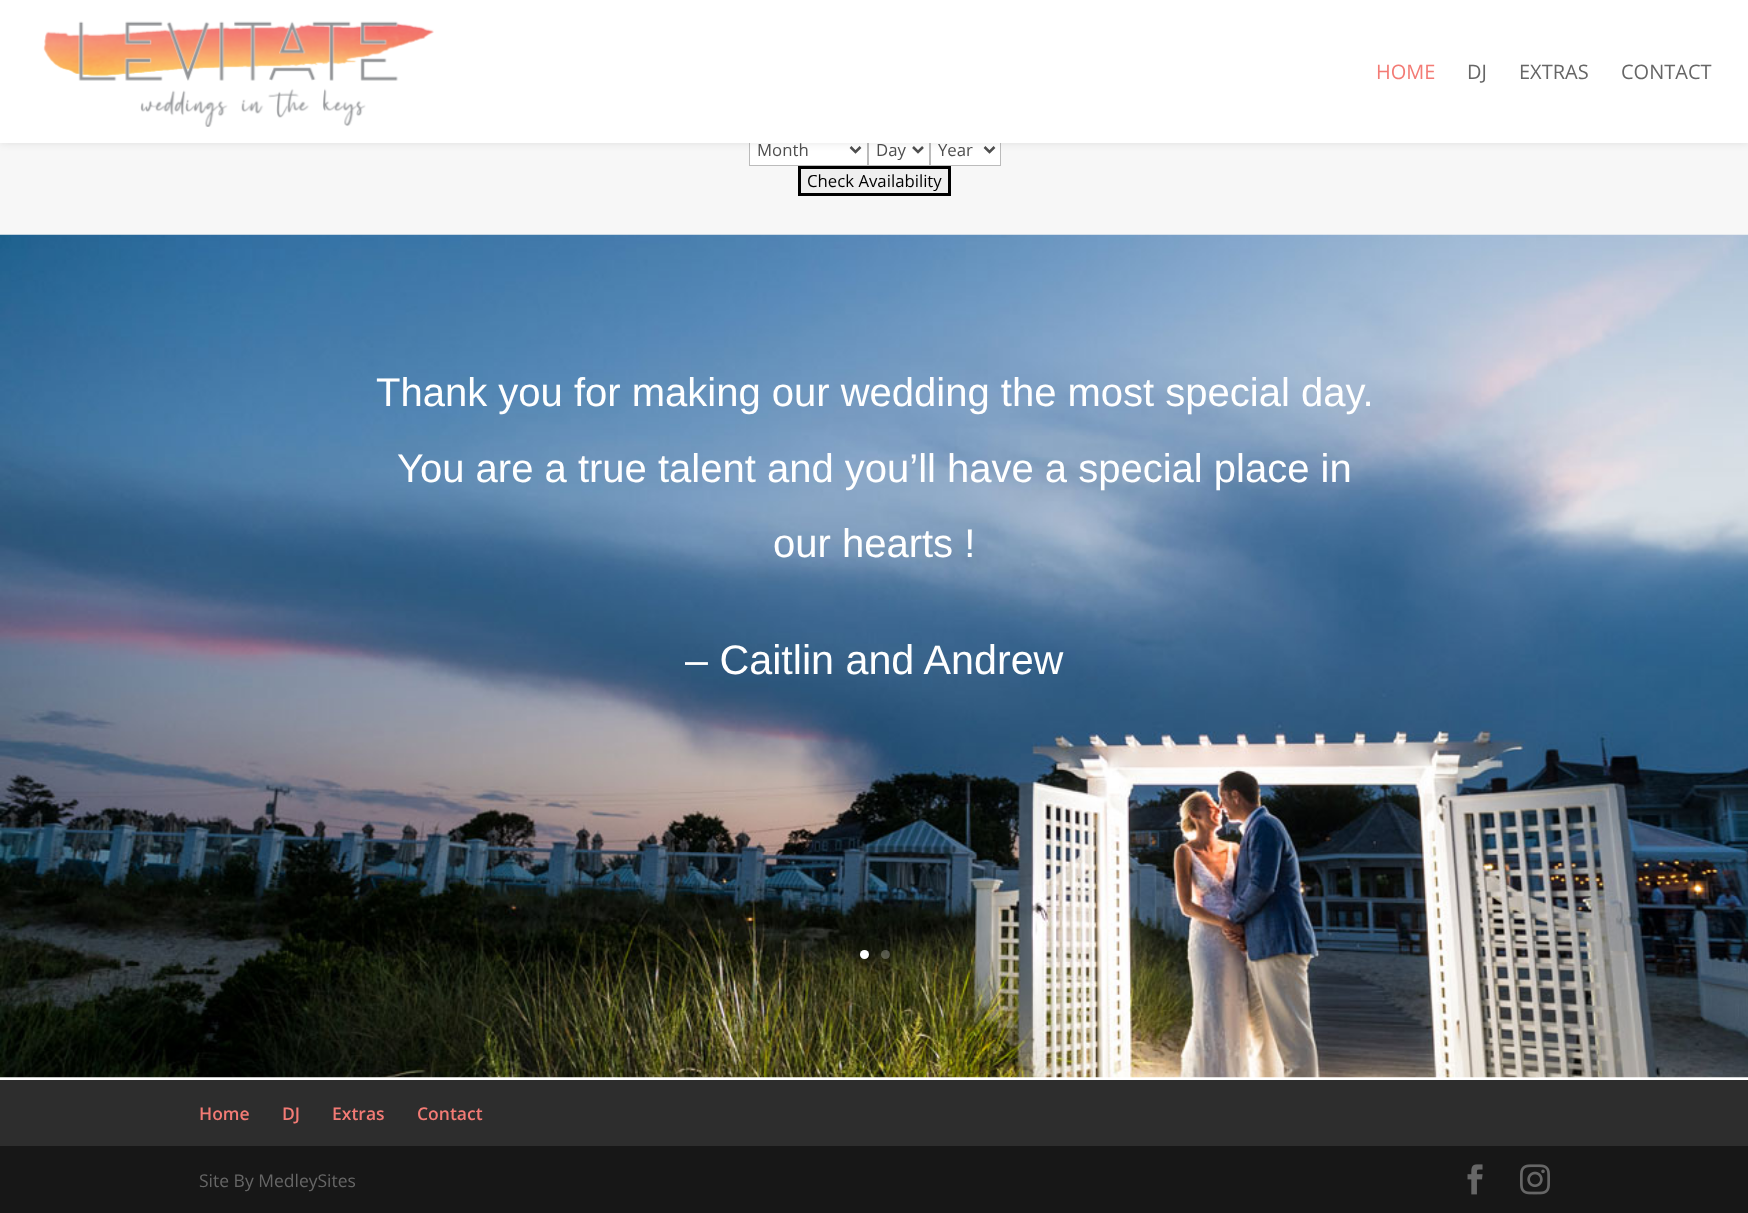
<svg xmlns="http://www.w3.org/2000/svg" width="1748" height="1213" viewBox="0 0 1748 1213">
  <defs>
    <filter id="blur1" x="-50%" y="-200%" width="200%" height="500%"><feGaussianBlur stdDeviation="4.5"/></filter>
  </defs>
  <rect width="100%" height="100%" fill="#ffffff"/>
  <rect x="0" y="143" width="1748" height="92" fill="#f7f7f7"/>
  <rect x="750" y="143" width="117" height="22" fill="#ffffff"/>
  <rect x="749.5" y="134.5" width="118" height="31" fill="none" stroke="#bbbbbb"/>
  <path d="M850.5 147L855.5 152L860.5 147" fill="none" stroke="#4e4e4e" stroke-width="2.5"/>
  <rect x="869" y="143" width="60" height="22" fill="#ffffff"/>
  <rect x="868.5" y="134.5" width="61" height="31" fill="none" stroke="#bbbbbb"/>
  <path d="M913 147L918 152L923 147" fill="none" stroke="#4e4e4e" stroke-width="2.5"/>
  <rect x="931" y="143" width="69" height="22" fill="#ffffff"/>
  <rect x="930.5" y="134.5" width="70" height="31" fill="none" stroke="#bbbbbb"/>
  <path d="M984.5 147L989.5 152L994.5 147" fill="none" stroke="#4e4e4e" stroke-width="2.5"/>
  <rect x="0" y="0" width="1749" height="143" fill="#000000" fill-opacity="0.1" filter="url(#blur1)"/>
  <rect x="0" y="0" width="1748" height="143" fill="#ffffff"/>
  <image x="43" y="21" width="391" height="106" href="img1.png"/>
  <text x="1376" y="79" font-family="Open Sans" font-size="20" fill="#f37b75">HOME</text>
  <text x="1467" y="79" font-family="Open Sans" font-size="20" fill="#666666">DJ</text>
  <text x="1519" y="79" font-family="Open Sans" font-size="20" fill="#666666">EXTRAS</text>
  <text x="1621" y="79" font-family="Open Sans" font-size="20" fill="#666666">CONTACT</text>
  <text x="757" y="156" font-family="Open Sans" font-size="16.75" fill="#4e4e4e">Month</text>
  <text x="876" y="156" font-family="Open Sans" font-size="16.75" fill="#4e4e4e">Day</text>
  <text x="938" y="156" font-family="Open Sans" font-size="16.75" fill="#4e4e4e">Year</text>
  <rect x="799.5" y="167.5" width="150" height="27" fill="#efefef" stroke="#000000" stroke-width="3"/>
  <text x="807" y="187" font-family="Open Sans" font-size="16.75" fill="#000000">Check Availability</text>
  <image x="0" y="234" width="1748" height="844" href="img2.png"/>
  <text x="376" y="406" font-family="Liberation Sans" font-size="40" fill="#ffffff">Thank you for making our wedding the most special day.</text>
  <text x="397" y="482" font-family="Liberation Sans" font-size="40" fill="#ffffff">You are a true talent and you’ll have a special place in</text>
  <text x="773" y="557" font-family="Liberation Sans" font-size="40" fill="#ffffff">our hearts !</text>
  <text x="685" y="674" font-family="Liberation Sans" font-size="41.25" fill="#ffffff">– Caitlin and Andrew</text>
  <circle cx="864.5" cy="954.5" r="4.5" fill="#ffffff"/>
  <circle cx="885.5" cy="954.5" r="4.5" fill="#ffffff" fill-opacity="0.25"/>
  <rect x="0" y="1080" width="1748" height="66" fill="#2d2d2d"/>
  <text x="199" y="1120" font-family="Open Sans" font-size="17.5" font-weight="600" fill="#f37b75">Home</text>
  <text x="282" y="1120" font-family="Open Sans" font-size="17.5" font-weight="600" fill="#f37b75">DJ</text>
  <text x="332" y="1120" font-family="Open Sans" font-size="17.5" font-weight="600" fill="#f37b75">Extras</text>
  <text x="417" y="1120" font-family="Open Sans" font-size="17.5" font-weight="600" fill="#f37b75">Contact</text>
  <rect x="0" y="1146" width="1748" height="67" fill="#171717"/>
  <text x="199" y="1187" font-family="Open Sans" font-size="17.5" fill="#666666">Site By MedleySites</text>
  <image x="1467" y="1164" width="16" height="31" href="img3.png"/>
  <image x="1520" y="1164" width="30" height="31" href="img4.png"/>
</svg>
